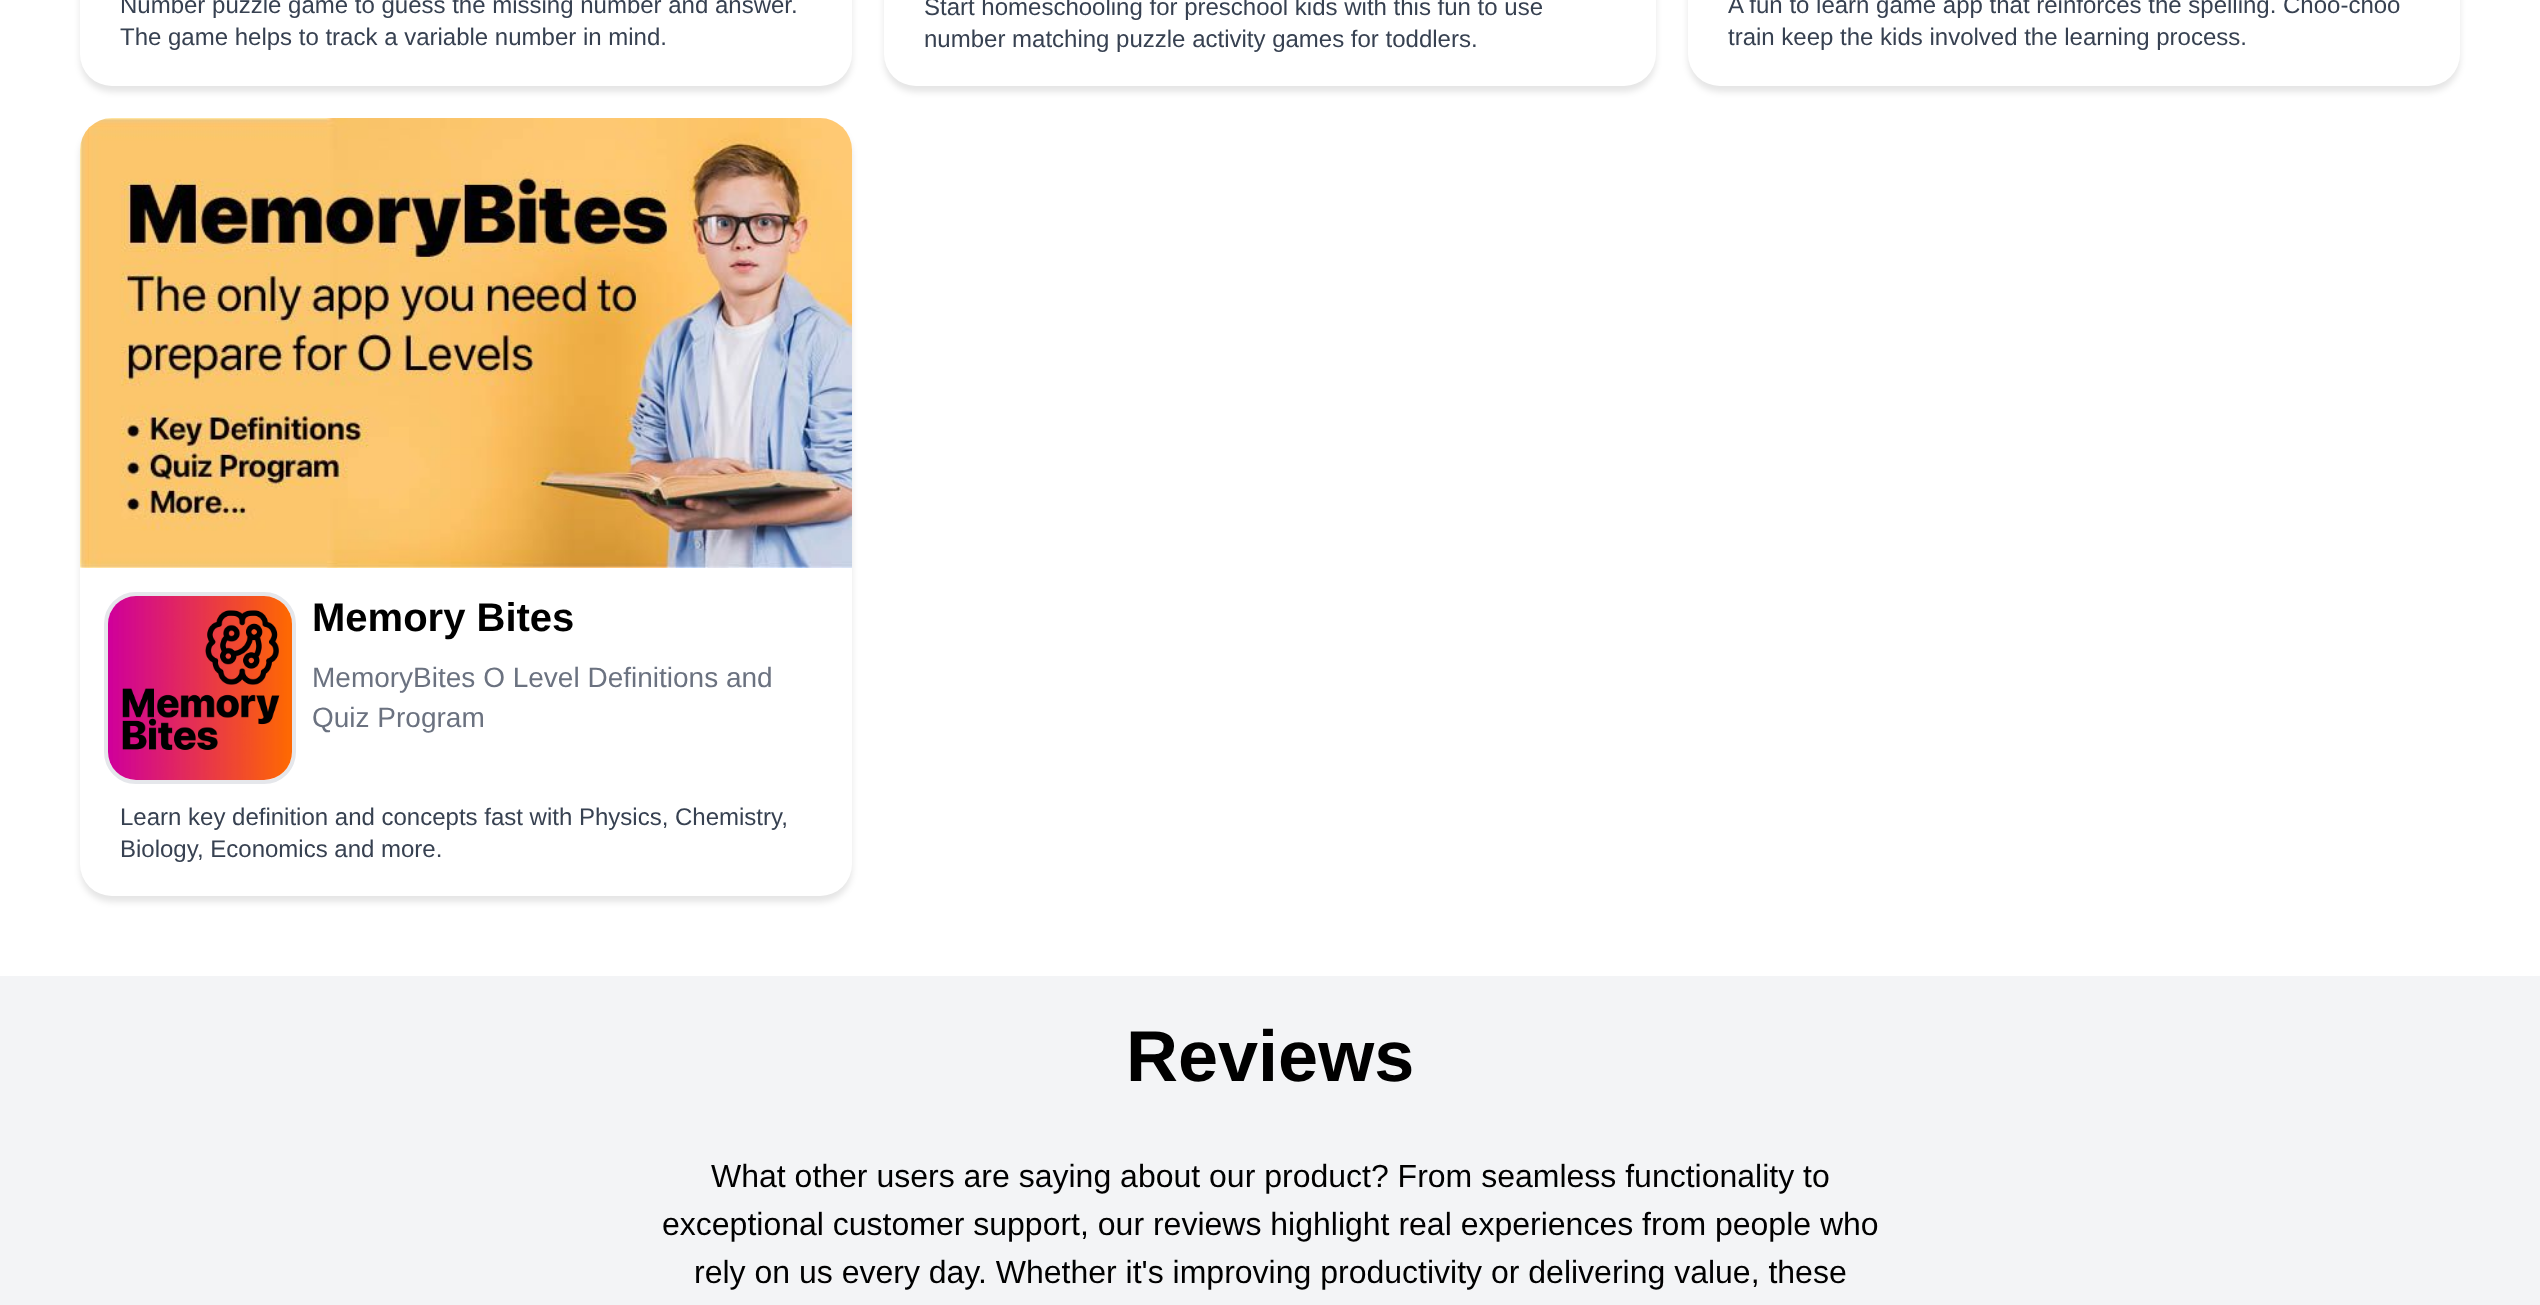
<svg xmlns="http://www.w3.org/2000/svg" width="2540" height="1305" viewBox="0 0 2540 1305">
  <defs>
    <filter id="blur1" x="-50%" y="-200%" width="200%" height="500%"><feGaussianBlur stdDeviation="3"/></filter>
  </defs>
  <rect width="100%" height="100%" fill="#ffffff"/>
  <rect x="80" y="-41" width="772" height="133" rx="32" fill="#000000" fill-opacity="0.1" filter="url(#blur1)"/>
  <rect x="80" y="-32" width="772" height="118" rx="32" fill="#ffffff"/>
  <text x="120" y="13" font-family="Liberation Sans" font-size="24" fill="#374151">Number puzzle game to guess the missing number and answer.</text>
  <text x="120" y="45" font-family="Liberation Sans" font-size="24" fill="#374151">The game helps to track a variable number in mind.</text>
  <rect x="884" y="-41" width="772" height="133" rx="32" fill="#000000" fill-opacity="0.1" filter="url(#blur1)"/>
  <rect x="884" y="-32" width="772" height="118" rx="32" fill="#ffffff"/>
  <text x="924" y="15" font-family="Liberation Sans" font-size="24" fill="#374151">Start homeschooling for preschool kids with this fun to use</text>
  <text x="924" y="47" font-family="Liberation Sans" font-size="24" fill="#374151">number matching puzzle activity games for toddlers.</text>
  <rect x="1688" y="-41" width="772" height="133" rx="32" fill="#000000" fill-opacity="0.1" filter="url(#blur1)"/>
  <rect x="1688" y="-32" width="772" height="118" rx="32" fill="#ffffff"/>
  <text x="1728" y="13" font-family="Liberation Sans" font-size="24" fill="#374151">A fun to learn game app that reinforces the spelling. Choo-choo</text>
  <text x="1728" y="45" font-family="Liberation Sans" font-size="24" fill="#374151">train keep the kids involved the learning process.</text>
  <rect x="80" y="124" width="772" height="778" rx="32" fill="#000000" fill-opacity="0.1" filter="url(#blur1)"/>
  <rect x="80" y="118" width="772" height="778" rx="32" fill="#ffffff"/>
  <image x="80" y="118" width="772" height="450" href="img1.png"/>
  <rect x="106" y="594" width="188" height="188" rx="30" fill="none" stroke="#e5e7eb" stroke-width="4"/>
  <image x="108" y="596" width="184" height="184" href="img2.png"/>
  <text x="312" y="631" font-family="Liberation Sans" font-size="40" font-weight="bold" fill="#000000">Memory Bites</text>
  <text x="312" y="687" font-family="Liberation Sans" font-size="28" fill="#6b7280">MemoryBites O Level Definitions and</text>
  <text x="312" y="727" font-family="Liberation Sans" font-size="28" fill="#6b7280">Quiz Program</text>
  <text x="120" y="825" font-family="Liberation Sans" font-size="24" fill="#374151">Learn key definition and concepts fast with Physics, Chemistry,</text>
  <text x="120" y="857" font-family="Liberation Sans" font-size="24" fill="#374151">Biology, Economics and more.</text>
  <rect x="0" y="976" width="2540" height="329" fill="#f3f4f6"/>
  <text x="1126" y="1081" font-family="Liberation Sans" font-size="72" font-weight="bold" fill="#000000">Reviews</text>
  <text x="711" y="1187" font-family="Liberation Sans" font-size="32" fill="#000000">What other users are saying about our product? From seamless functionality to</text>
  <text x="662" y="1235" font-family="Liberation Sans" font-size="32" fill="#000000">exceptional customer support, our reviews highlight real experiences from people who</text>
  <text x="694" y="1283" font-family="Liberation Sans" font-size="32" fill="#000000">rely on us every day. Whether it's improving productivity or delivering value, these</text>
</svg>
